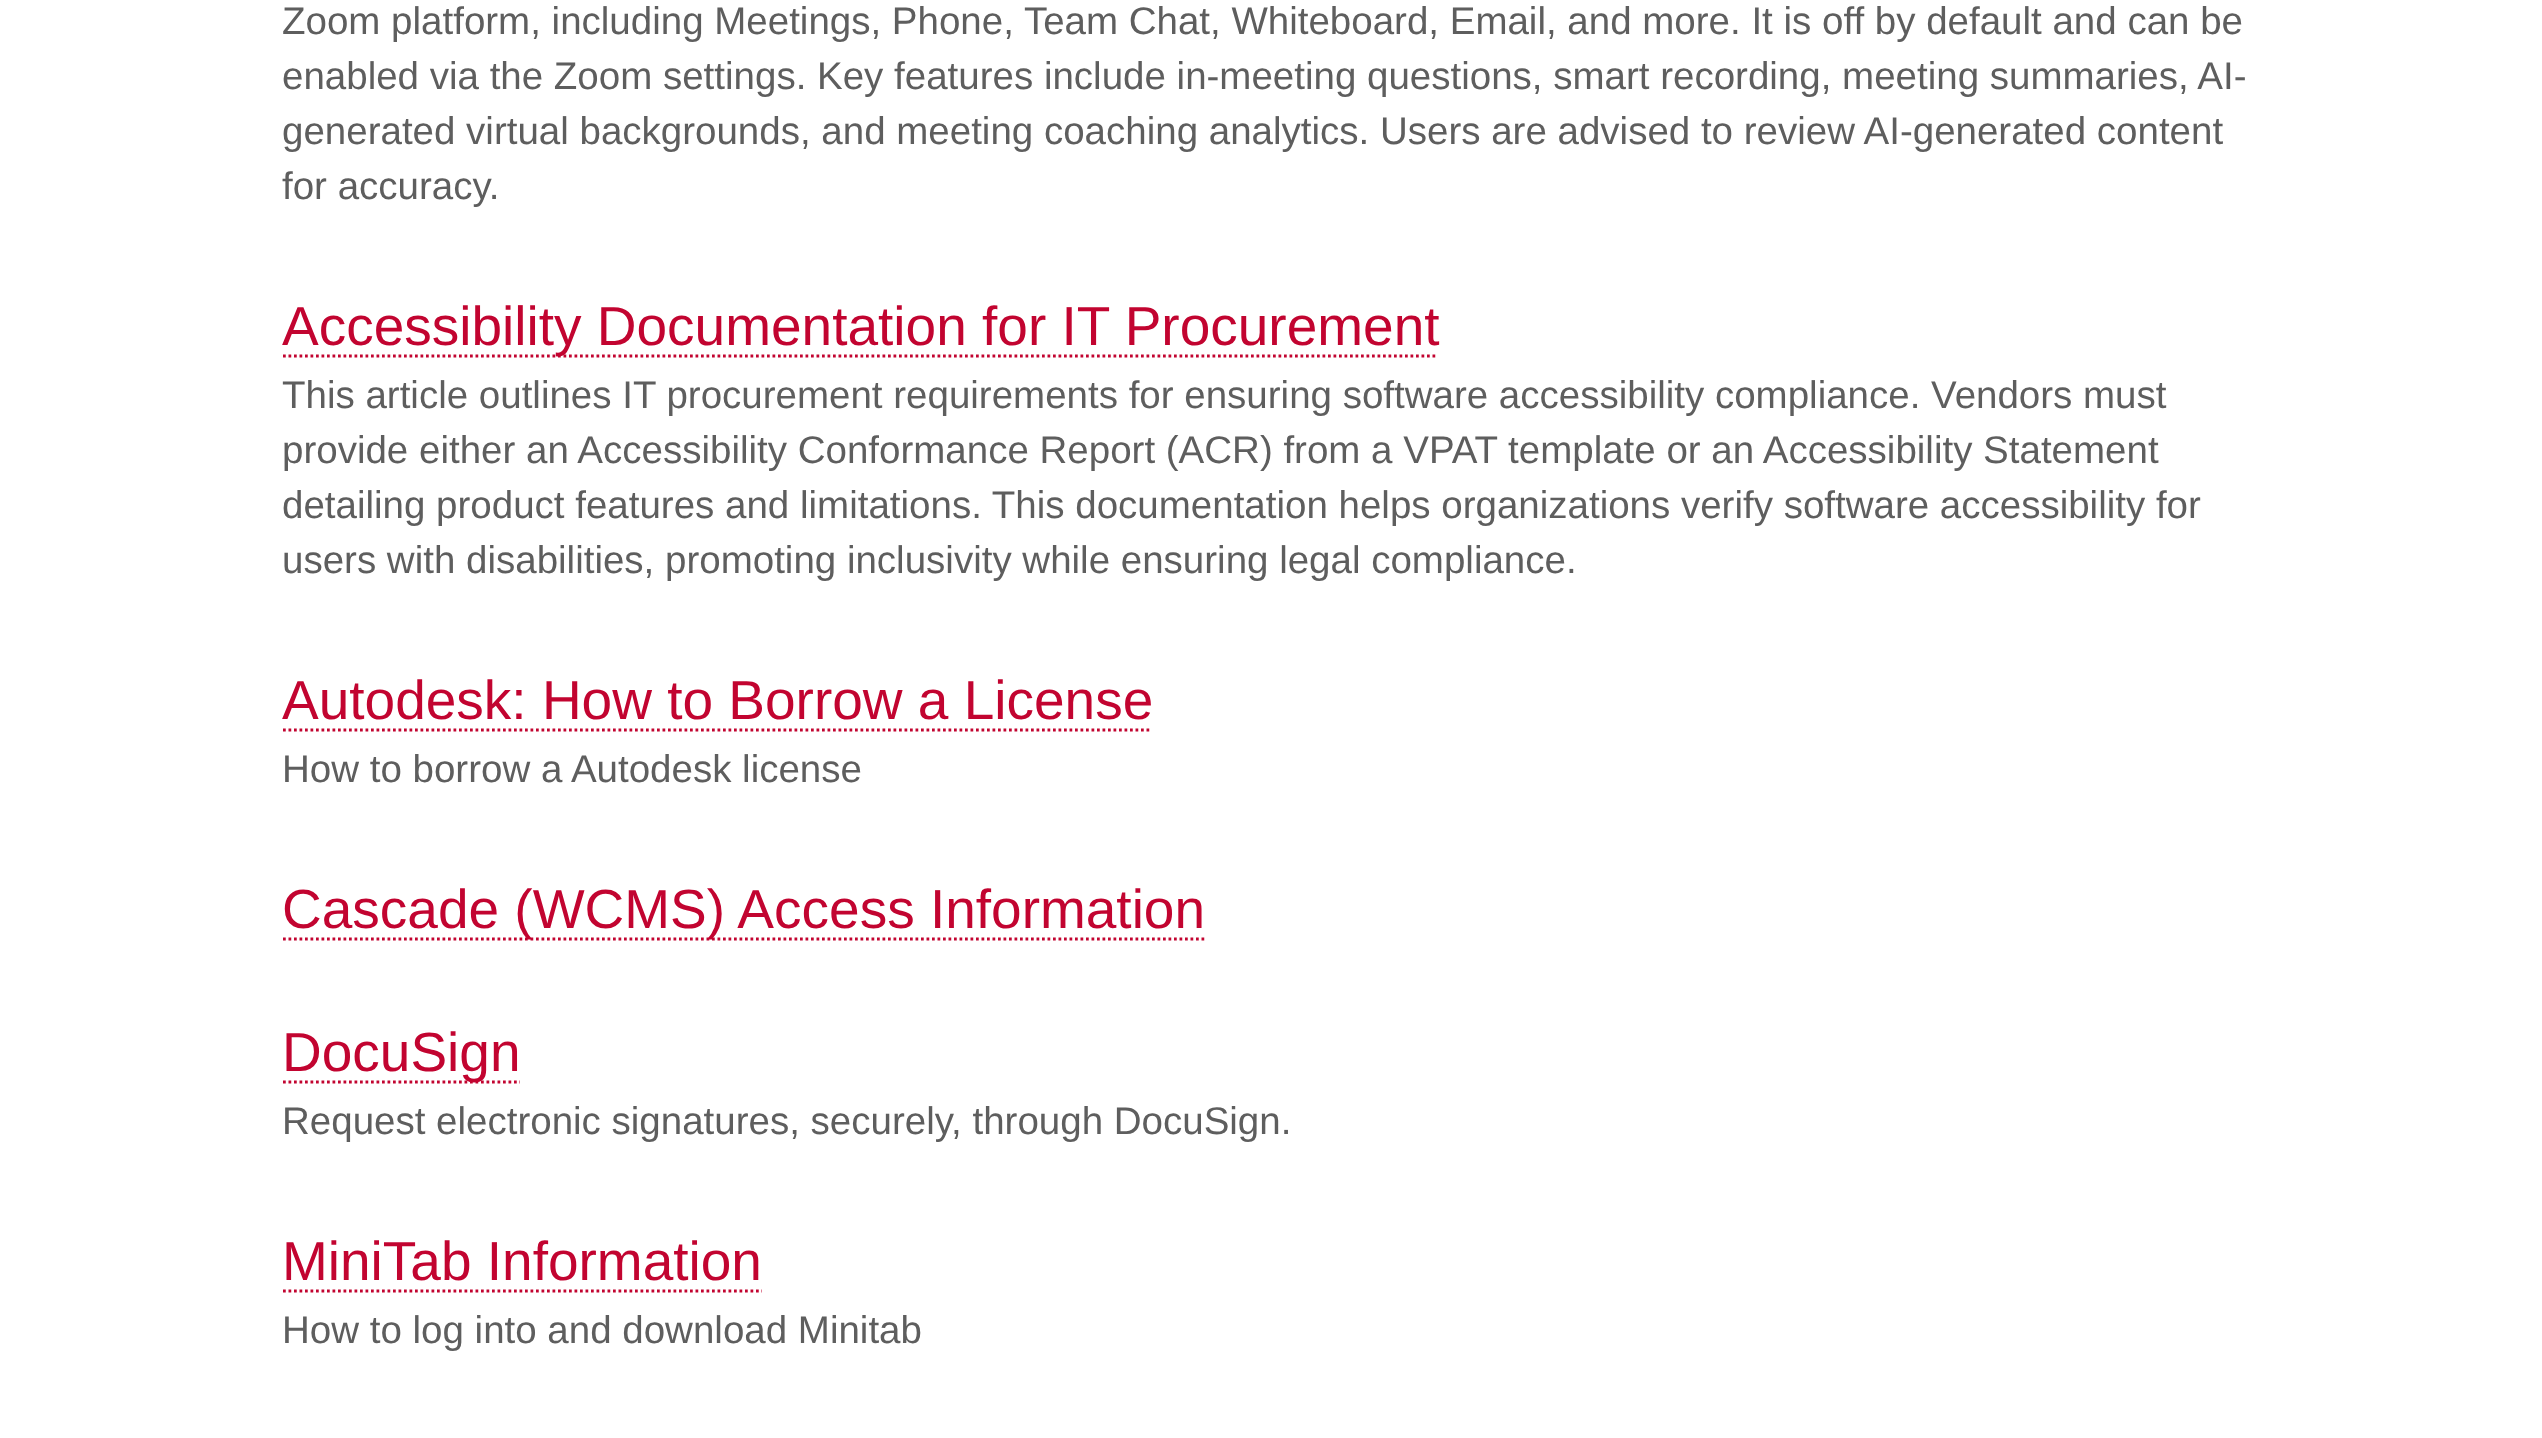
<svg xmlns="http://www.w3.org/2000/svg" width="2542" height="1438" viewBox="0 0 2542 1438">
  <rect width="100%" height="100%" fill="#ffffff"/>
  <text x="282" y="34" font-family="Liberation Sans" font-size="38.5" fill="#5e5e5e">Zoom platform, including Meetings, Phone, Team Chat, Whiteboard, Email, and more. It is off by default and can be</text>
  <text x="282" y="89" font-family="Liberation Sans" font-size="38.5" fill="#5e5e5e">enabled via the Zoom settings. Key features include in-meeting questions, smart recording, meeting summaries, AI-</text>
  <text x="282" y="144" font-family="Liberation Sans" font-size="38.5" fill="#5e5e5e">generated virtual backgrounds, and meeting coaching analytics. Users are advised to review AI-generated content</text>
  <text x="282" y="199" font-family="Liberation Sans" font-size="38.5" fill="#5e5e5e">for accuracy.</text>
  <path d="M283 356H1438" fill="none" stroke="#c20430" stroke-width="2.8" stroke-dasharray="2.75 2.75"/>
  <text x="282" y="345" font-family="Liberation Sans" font-size="55" fill="#c20430">Accessibility Documentation for IT Procurement</text>
  <text x="282" y="408" font-family="Liberation Sans" font-size="38.5" fill="#5e5e5e">This article outlines IT procurement requirements for ensuring software accessibility compliance. Vendors must</text>
  <text x="282" y="463" font-family="Liberation Sans" font-size="38.5" fill="#5e5e5e">provide either an Accessibility Conformance Report (ACR) from a VPAT template or an Accessibility Statement</text>
  <text x="282" y="518" font-family="Liberation Sans" font-size="38.5" fill="#5e5e5e">detailing product features and limitations. This documentation helps organizations verify software accessibility for</text>
  <text x="282" y="573" font-family="Liberation Sans" font-size="38.5" fill="#5e5e5e">users with disabilities, promoting inclusivity while ensuring legal compliance.</text>
  <text x="282" y="719" font-family="Liberation Sans" font-size="55" fill="#c20430">Autodesk: How to Borrow a License</text>
  <path d="M283 730H1152" fill="none" stroke="#c20430" stroke-width="2.8" stroke-dasharray="2.75 2.75"/>
  <text x="282" y="782" font-family="Liberation Sans" font-size="38.5" fill="#5e5e5e">How to borrow a Autodesk license</text>
  <path d="M283 939H1204.5" fill="none" stroke="#c20430" stroke-width="2.8" stroke-dasharray="2.75 2.75"/>
  <text x="282" y="928" font-family="Liberation Sans" font-size="55" fill="#c20430">Cascade (WCMS) Access Information</text>
  <path d="M283 1082H520" fill="none" stroke="#c20430" stroke-width="2.8" stroke-dasharray="2.75 2.75"/>
  <text x="282" y="1071" font-family="Liberation Sans" font-size="55" fill="#c20430">DocuSign</text>
  <text x="282" y="1134" font-family="Liberation Sans" font-size="38.5" fill="#5e5e5e">Request electronic signatures, securely, through DocuSign.</text>
  <text x="282" y="1280" font-family="Liberation Sans" font-size="55" fill="#c20430">MiniTab Information</text>
  <path d="M283 1291H762" fill="none" stroke="#c20430" stroke-width="2.8" stroke-dasharray="2.75 2.75"/>
  <text x="282" y="1343" font-family="Liberation Sans" font-size="38.5" fill="#5e5e5e">How to log into and download Minitab</text>
</svg>
